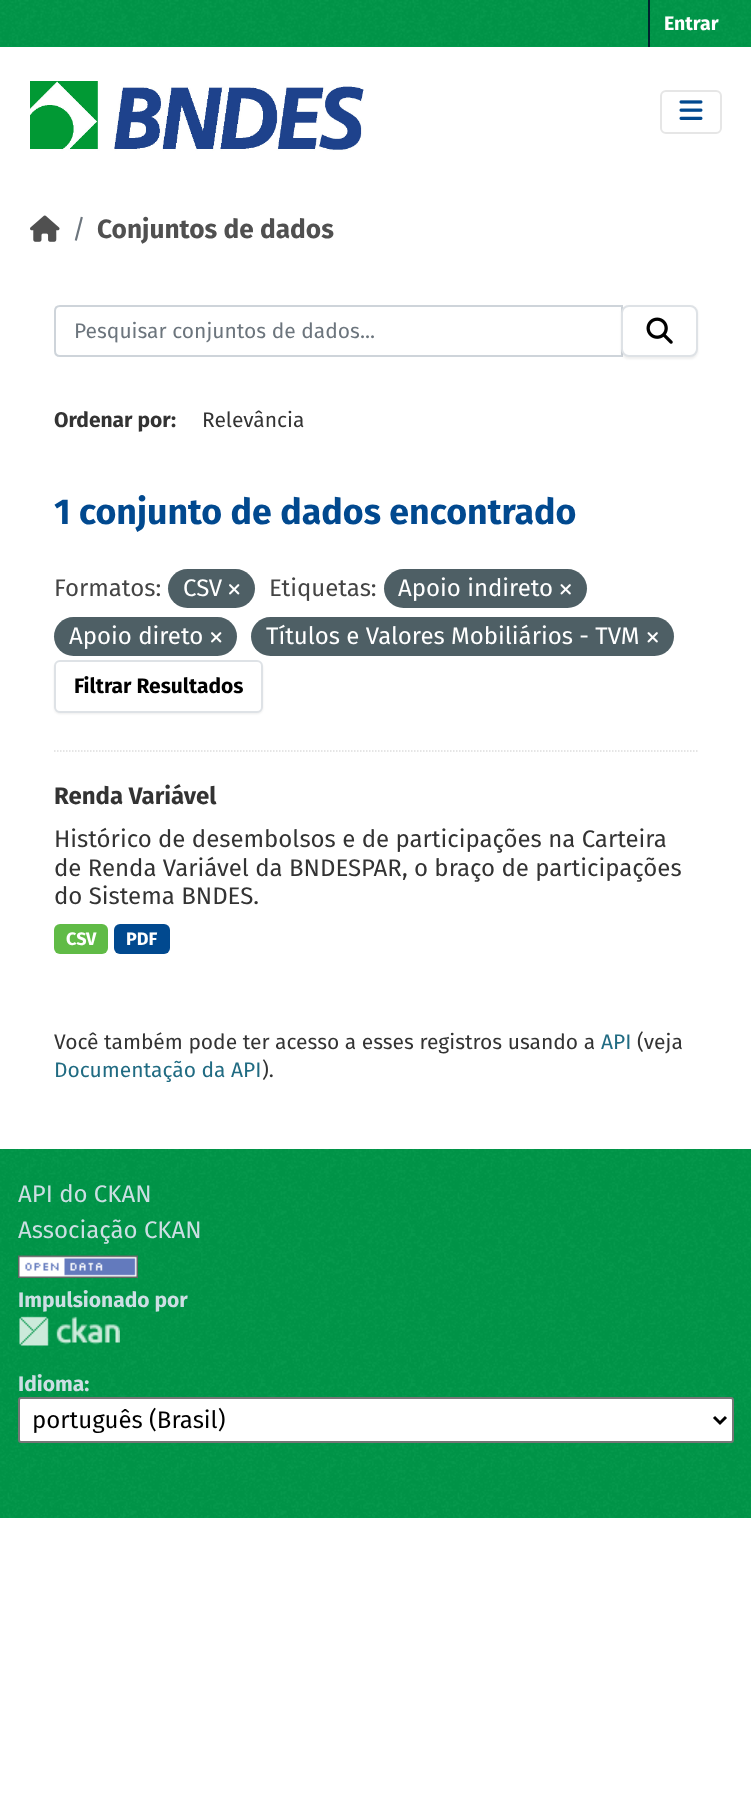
<svg xmlns="http://www.w3.org/2000/svg" width="751" height="1815" viewBox="0 0 751 1815">
  <defs>
    <filter id="blur1" x="-50%" y="-200%" width="200%" height="500%"><feGaussianBlur stdDeviation="1"/></filter>
  </defs>
  <rect width="100%" height="100%" fill="#ffffff"/>
  <rect x="0" y="0" width="751" height="47" fill="#00984a"/>
  <image x="0" y="0" width="751" height="46" href="img1.png"/>
  <rect x="648" y="0" width="2" height="47" fill="#00232e"/>
  <text x="664" y="30" font-family="Fira Sans" font-size="19.5" font-weight="bold" fill="#ffffff">Entrar</text>
  <image x="30" y="81" width="334" height="70" href="img2.png"/>
  <rect x="661" y="91" width="60" height="42" rx="5" fill="none" stroke="#e6e6e6" stroke-width="2"/>
  <image x="679" y="100" width="24" height="20" href="img3.png"/>
  <image x="30" y="215" width="30" height="27" href="img4.png"/>
  <text x="72" y="238" font-family="Fira Sans" font-size="26.25" fill="#6c757d">/</text>
  <text x="97" y="238" font-family="Fira Sans" font-size="26.25" font-weight="bold" fill="#505050">Conjuntos de dados</text>
  <path d="M54 751H697.5" fill="none" stroke="#dddddd" stroke-width="1.5" stroke-dasharray="1.5 1.5"/>
  <path d="M60 306H622V356H60C57 356 55 354 55 351V311C55 308 57 306 60 306Z" fill="none" stroke="#ced4da" stroke-width="2"/>
  <text x="74" y="338" font-family="Fira Sans" font-size="21" fill="#6c757d">Pesquisar conjuntos de dados...</text>
  <rect x="621" y="306" width="77" height="53" rx="8" fill="#000000" fill-opacity="0.07" filter="url(#blur1)"/>
  <rect x="622" y="306" width="75" height="50" rx="7" fill="#ffffff" stroke="#dee2e6" stroke-width="2"/>
  <image x="646" y="317" width="27" height="27" href="img5.png"/>
  <text x="54" y="427" font-family="Fira Sans" font-size="21" font-weight="bold" fill="#333333">Ordenar por:</text>
  <text x="202" y="427" font-family="Fira Sans" font-size="21" fill="#333333">Relevância</text>
  <text x="54" y="524" font-family="Fira Sans" font-size="35.75" font-weight="bold" fill="#01498f">1 conjunto de dados encontrado</text>
  <text x="54" y="596" font-family="Fira Sans" font-size="24" fill="#444444">Formatos:</text>
  <rect x="168" y="569" width="87" height="39" rx="19.5" fill="#4e5f65"/>
  <text x="183" y="596" font-family="Fira Sans" font-size="24" fill="#ffffff">CSV</text>
  <image x="229" y="584" width="11" height="11" href="img6.png"/>
  <text x="269" y="596" font-family="Fira Sans" font-size="24" fill="#444444">Etiquetas:</text>
  <rect x="384" y="569" width="203" height="39" rx="19.5" fill="#4e5f65"/>
  <text x="398" y="596" font-family="Fira Sans" font-size="24" fill="#ffffff">Apoio indireto</text>
  <image x="560" y="584" width="11" height="11" href="img7.png"/>
  <rect x="54" y="617" width="183" height="39" rx="19.5" fill="#4e5f65"/>
  <text x="69" y="644" font-family="Fira Sans" font-size="24" fill="#ffffff">Apoio direto</text>
  <image x="211" y="632" width="11" height="11" href="img6.png"/>
  <rect x="251" y="617" width="423" height="39" rx="19.5" fill="#4e5f65"/>
  <text x="266" y="644" font-family="Fira Sans" font-size="24" fill="#ffffff">Títulos e Valores Mobiliários - TVM</text>
  <image x="647" y="632" width="11" height="11" href="img7.png"/>
  <rect x="54" y="662" width="209" height="52" rx="6" fill="#000000" fill-opacity="0.07" filter="url(#blur1)"/>
  <rect x="55" y="661" width="207" height="51" rx="5" fill="#ffffff" stroke="#dee2e6" stroke-width="2"/>
  <text x="74" y="693" font-family="Fira Sans" font-size="21" font-weight="bold" fill="#000000">Filtrar Resultados</text>
  <text x="54" y="804" font-family="Fira Sans" font-size="24" font-weight="bold" fill="#333333">Renda Variável</text>
  <text x="54" y="847" font-family="Fira Sans" font-size="24" fill="#333333">Histórico de desembolsos e de participações na Carteira</text>
  <text x="54" y="876" font-family="Fira Sans" font-size="24" fill="#333333">de Renda Variável da BNDESPAR, o braço de participações</text>
  <text x="54" y="904" font-family="Fira Sans" font-size="24" fill="#333333">do Sistema BNDES.</text>
  <rect x="54" y="924" width="54" height="30" rx="6" fill="#60bb46"/>
  <text x="66" y="945" font-family="Fira Sans" font-size="18" font-weight="bold" fill="#ffffff">CSV</text>
  <rect x="114" y="924" width="56" height="30" rx="6" fill="#01498f"/>
  <text x="126" y="945" font-family="Fira Sans" font-size="18" font-weight="bold" fill="#ffffff">PDF</text>
  <text x="54" y="1049" font-family="Fira Sans" font-size="21" fill="#333333">Você também pode ter acesso a esses registros usando a</text>
  <text x="601" y="1049" font-family="Fira Sans" font-size="21" fill="#206b82">API</text>
  <text x="637" y="1049" font-family="Fira Sans" font-size="21" fill="#333333">(veja</text>
  <text x="54" y="1077" font-family="Fira Sans" font-size="21" fill="#206b82">Documentação da API</text>
  <text x="262" y="1077" font-family="Fira Sans" font-size="21" fill="#333333">).</text>
  <rect x="0" y="1149" width="751" height="369" fill="#00984a"/>
  <image x="0" y="1149" width="751" height="369" href="img8.png"/>
  <text x="18" y="1202" font-family="Fira Sans" font-size="24" fill="#ccdee3">API do CKAN</text>
  <text x="18" y="1238" font-family="Fira Sans" font-size="24" fill="#ccdee3">Associação CKAN</text>
  <image x="18" y="1255" width="120" height="23" href="img9.png"/>
  <text x="18" y="1307" font-family="Fira Sans" font-size="21" font-weight="bold" fill="#ccdee3">Impulsionado por</text>
  <image x="19" y="1316" width="101" height="30" href="img10.png"/>
  <text x="18" y="1391" font-family="Fira Sans" font-size="21" font-weight="bold" fill="#ccdee3">Idioma:</text>
  <rect x="19" y="1398" width="714" height="44" rx="2" fill="#ffffff" stroke="#767676" stroke-width="2"/>
  <path d="M714 1417L720 1423L726 1417" fill="none" stroke="#000000" stroke-width="3"/>
  <text x="32" y="1428" font-family="Fira Sans" font-size="24" fill="#000000">português (Brasil)</text>
</svg>
